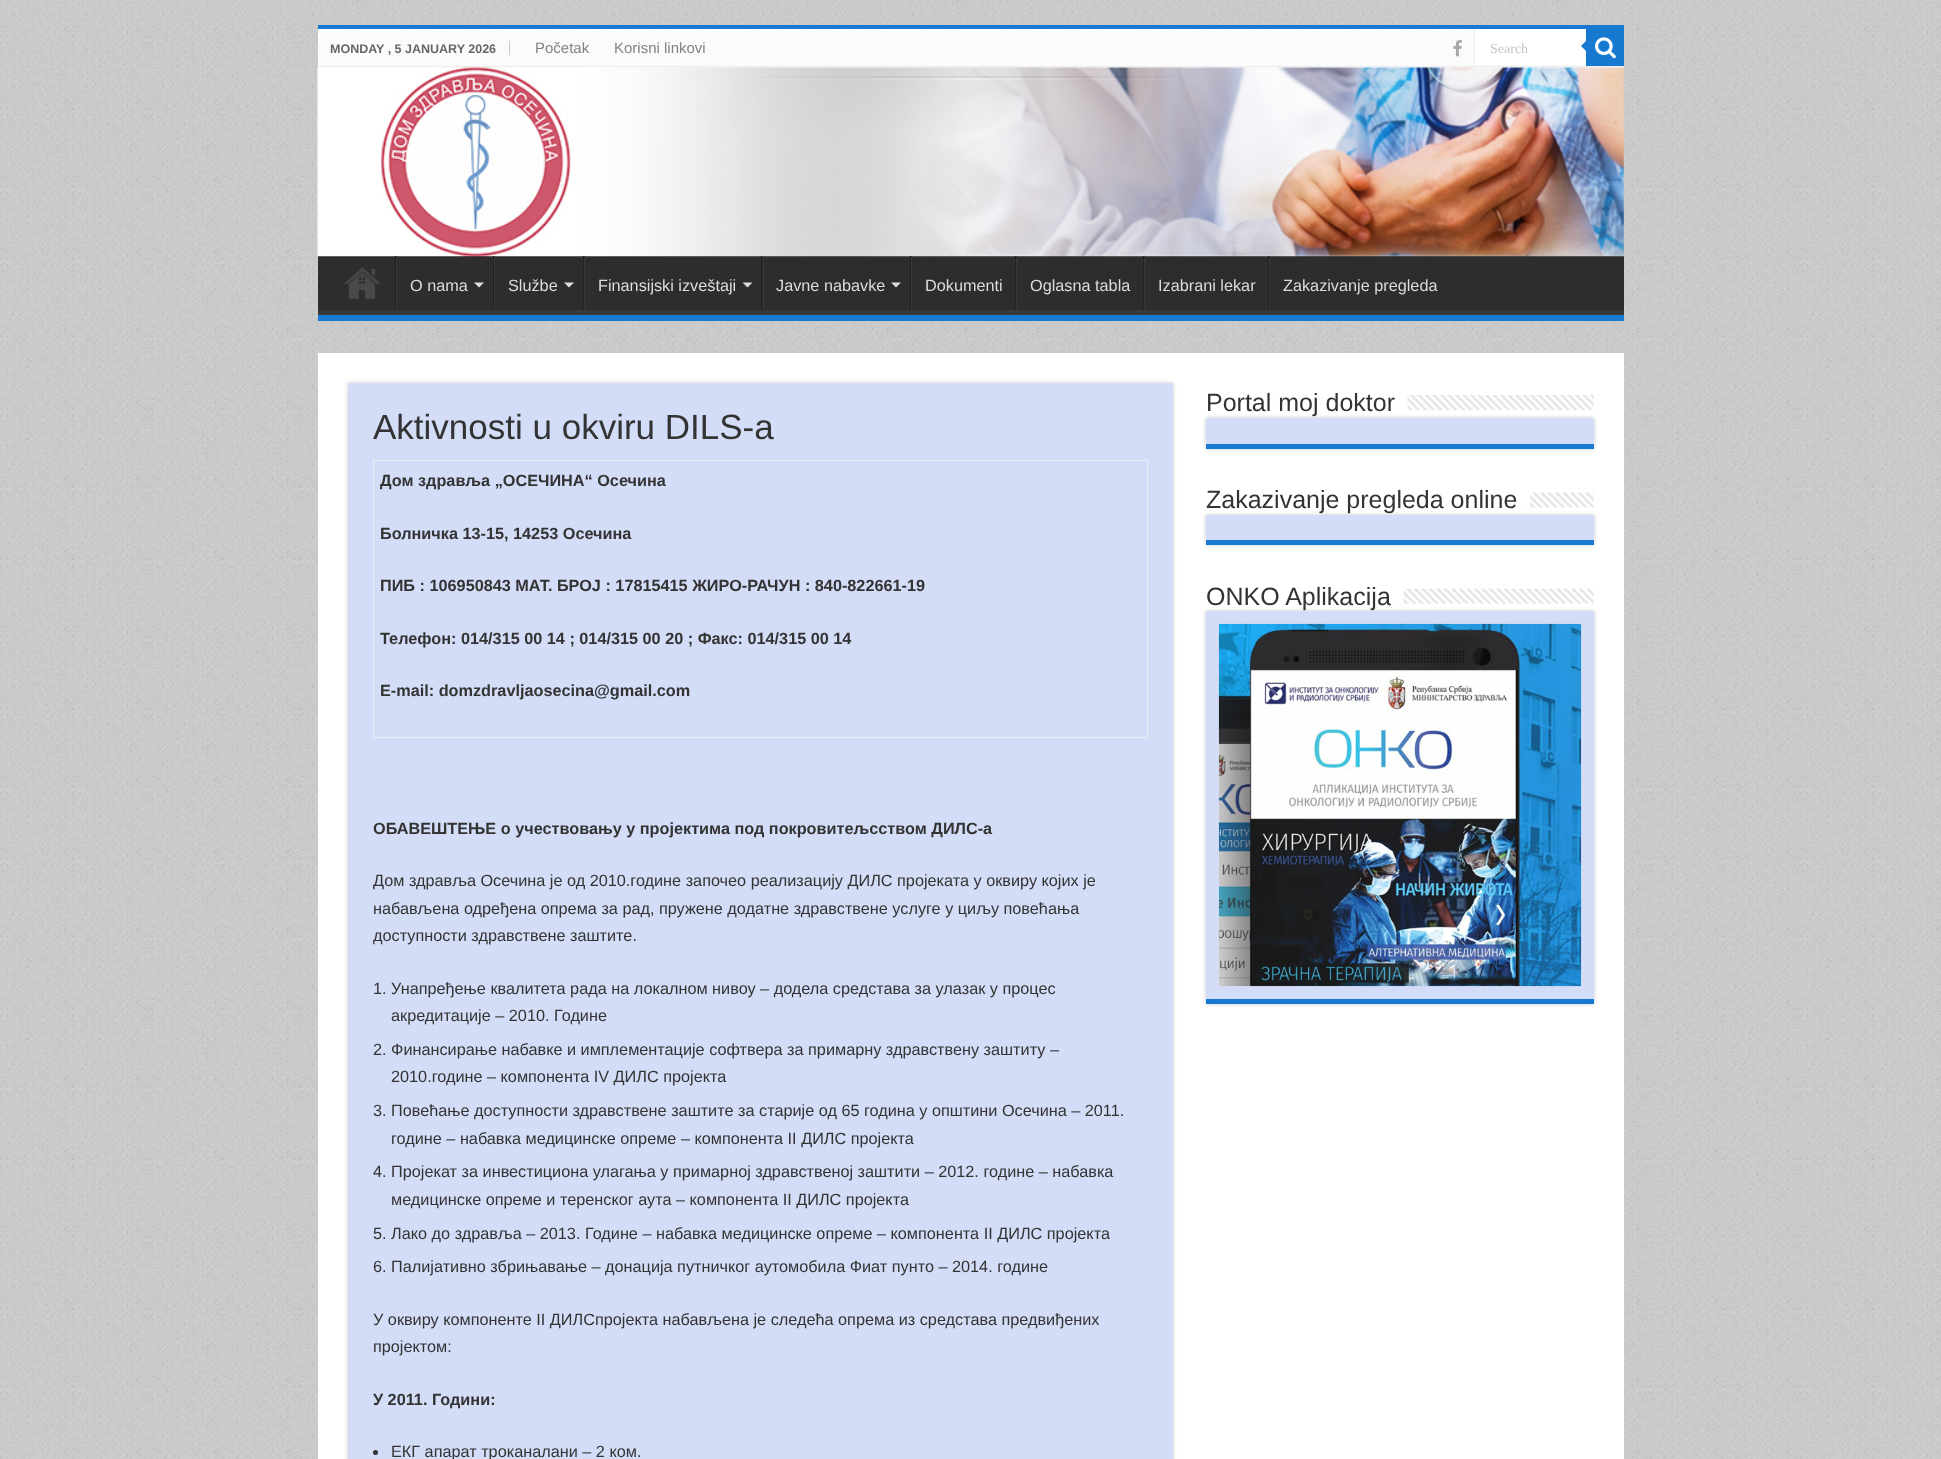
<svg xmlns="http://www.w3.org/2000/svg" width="1941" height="1459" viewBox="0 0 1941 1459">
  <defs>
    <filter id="blur1" x="-50%" y="-200%" width="200%" height="500%"><feGaussianBlur stdDeviation="2"/></filter>
    <clipPath id="clip1"><rect x="318" y="256" width="1306" height="59"/></clipPath>
  </defs>
  <rect width="100%" height="100%" fill="#c9c9c9"/>
  <image x="0" y="0" width="1941" height="1459" href="img1.png"/>
  <rect x="318" y="25" width="1306" height="296" fill="#cacaca" filter="url(#blur1)"/>
  <rect x="318" y="25" width="1306" height="4" fill="#177ad0"/>
  <rect x="318" y="29" width="1306" height="39" fill="#fbfbfb"/>
  <rect x="318" y="66" width="1306" height="1" fill="#ececec"/>
  <rect x="509" y="41" width="1" height="14" fill="#cccccc"/>
  <text x="330" y="53" font-family="Liberation Sans" font-size="12.5" font-weight="bold" fill="#666666">MONDAY , 5 JANUARY 2026</text>
  <text x="535" y="53" font-family="Liberation Sans" font-size="15" fill="#838383">Početak</text>
  <text x="614" y="53" font-family="Liberation Sans" font-size="15" fill="#838383">Korisni linkovi</text>
  <image x="1453" y="40" width="9" height="17" href="img2.png"/>
  <rect x="1475" y="29" width="111" height="36" fill="#ffffff"/>
  <rect x="1474" y="29" width="1" height="36" fill="#ececec"/>
  <text x="1490" y="53" font-family="Liberation Serif" font-size="14" fill="#c5c5c5">Search</text>
  <rect x="1586" y="29" width="38" height="37" fill="#177ad0"/>
  <image x="1595" y="37" width="21" height="22" href="img3.png"/>
  <path d="M1586 41V51L1581 46Z" fill="#177ad0"/>
  <rect x="318" y="256" width="1306" height="54" fill="#2d2d2d"/>
  <image x="317" y="67" width="1307" height="190" href="img4.png"/>
  <g clip-path="url(#clip1)">
    <path d="M194 132H1748V439H194ZM316 249H1622C1623 249 1624 249 1624 250V309C1624 309 1623 310 1622 310H316C316 310 315 309 315 309V250C315 249 316 249 316 249Z" fill="#393939" fill-rule="evenodd"/>
  </g>
  <rect x="318" y="315" width="1306" height="6" fill="#177ad0"/>
  <image x="344" y="267" width="36" height="32" href="img5.png"/>
  <rect x="395" y="256" width="1" height="53" fill="#222222"/>
  <rect x="396" y="256" width="1" height="53" fill="#383838"/>
  <text x="410" y="291" font-family="Liberation Sans" font-size="16.25" fill="#dddddd">O nama</text>
  <path d="M474 282.5H484L479 287.5Z" fill="#dddddd"/>
  <rect x="493" y="256" width="1" height="53" fill="#222222"/>
  <rect x="494" y="256" width="1" height="53" fill="#383838"/>
  <text x="508" y="291" font-family="Liberation Sans" font-size="16.25" fill="#dddddd">Službe</text>
  <path d="M564 282.5H574L569 287.5Z" fill="#dddddd"/>
  <rect x="583" y="256" width="1" height="53" fill="#222222"/>
  <rect x="584" y="256" width="1" height="53" fill="#383838"/>
  <text x="598" y="291" font-family="Liberation Sans" font-size="16.25" fill="#dddddd">Finansijski izveštaji</text>
  <path d="M742.5 282.5H752.5L747.5 287.5Z" fill="#dddddd"/>
  <rect x="761" y="256" width="1" height="53" fill="#222222"/>
  <rect x="763" y="256" width="1" height="53" fill="#383838"/>
  <text x="776" y="291" font-family="Liberation Sans" font-size="16.25" fill="#dddddd">Javne nabavke</text>
  <path d="M891 282.5H901L896 287.5Z" fill="#dddddd"/>
  <rect x="910" y="256" width="1" height="53" fill="#222222"/>
  <rect x="911" y="256" width="1" height="53" fill="#383838"/>
  <text x="925" y="291" font-family="Liberation Sans" font-size="16.25" fill="#dddddd">Dokumenti</text>
  <rect x="1015" y="256" width="1" height="53" fill="#222222"/>
  <rect x="1016" y="256" width="1" height="53" fill="#383838"/>
  <text x="1030" y="291" font-family="Liberation Sans" font-size="16.25" fill="#dddddd">Oglasna tabla</text>
  <rect x="1143" y="256" width="1" height="53" fill="#222222"/>
  <rect x="1144" y="256" width="1" height="53" fill="#383838"/>
  <text x="1158" y="291" font-family="Liberation Sans" font-size="16.25" fill="#dddddd">Izabrani lekar</text>
  <rect x="1268" y="256" width="1" height="53" fill="#222222"/>
  <rect x="1269" y="256" width="1" height="53" fill="#383838"/>
  <text x="1283" y="291" font-family="Liberation Sans" font-size="16.25" fill="#dddddd">Zakazivanje pregleda</text>
  <rect x="318" y="353" width="1306" height="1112" fill="#cacaca" filter="url(#blur1)"/>
  <rect x="318" y="353" width="1306" height="1106" fill="#ffffff"/>
  <rect x="348" y="383" width="825" height="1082" fill="#cacaca" filter="url(#blur1)"/>
  <rect x="348" y="383" width="825" height="1076" fill="#d4ddf7"/>
  <text x="373" y="439" font-family="Liberation Sans" font-size="35" fill="#333333">Aktivnosti u okviru DILS-a</text>
  <rect x="373.5" y="460.5" width="774" height="277" fill="none" stroke="#eeeeee"/>
  <text x="380" y="486" font-family="Liberation Sans" font-size="16.25" font-weight="bold" fill="#333333">Дом здравља „ОСЕЧИНА“ Осечина</text>
  <text x="380" y="539" font-family="Liberation Sans" font-size="16.25" font-weight="bold" fill="#333333">Болничка 13-15, 14253 Осечина</text>
  <text x="380" y="591" font-family="Liberation Sans" font-size="16.25" font-weight="bold" fill="#333333">ПИБ : 106950843 МАТ. БРОЈ : 17815415 ЖИРО-РАЧУН : 840-822661-19</text>
  <text x="380" y="644" font-family="Liberation Sans" font-size="16.25" font-weight="bold" fill="#333333">Телефон: 014/315 00 14 ; 014/315 00 20 ; Факс: 014/315 00 14</text>
  <text x="380" y="696" font-family="Liberation Sans" font-size="16.25" font-weight="bold" fill="#333333">E-mail: domzdravljaosecina@gmail.com</text>
  <text x="373" y="834" font-family="Liberation Sans" font-size="16.25" font-weight="bold" fill="#333333">ОБАВЕШТЕЊЕ о учествовању у пројектима под покровитељсством ДИЛС-а</text>
  <text x="373" y="886" font-family="Liberation Sans" font-size="16.25" fill="#333333">Дом здравља Осечина је од 2010.године започео реализацију ДИЛС пројеката у оквиру којих је</text>
  <text x="373" y="914" font-family="Liberation Sans" font-size="16.25" fill="#333333">набављена одређена опрема за рад, пружене додатне здравствене услуге у циљу повећања</text>
  <text x="373" y="941" font-family="Liberation Sans" font-size="16.25" fill="#333333">доступности здравствене заштите.</text>
  <text x="373" y="994" font-family="Liberation Sans" font-size="16.25" fill="#333333">1. Унапређeње квалитета рада на локалном нивоу – додела средстава за улазак у процес</text>
  <text x="391" y="1021" font-family="Liberation Sans" font-size="16.25" fill="#333333">акредитације – 2010. Године</text>
  <text x="373" y="1055" font-family="Liberation Sans" font-size="16.25" fill="#333333">2. Финансирање набавке и имплементације софтвера за примарну здравствену заштиту –</text>
  <text x="391" y="1082" font-family="Liberation Sans" font-size="16.25" fill="#333333">2010.године – компонента IV ДИЛС пројекта</text>
  <text x="373" y="1116" font-family="Liberation Sans" font-size="16.25" fill="#333333">3. Повећање доступности здравствене заштите за старије од 65 година у општини Осечина – 2011.</text>
  <text x="391" y="1144" font-family="Liberation Sans" font-size="16.25" fill="#333333">године – набавка медицинске опреме – компонента II ДИЛС пројекта</text>
  <text x="373" y="1177" font-family="Liberation Sans" font-size="16.25" fill="#333333">4. Пројекат за инвестициона улагања у примарној здравственој заштити – 2012. године – набавка</text>
  <text x="391" y="1205" font-family="Liberation Sans" font-size="16.25" fill="#333333">медицинске опреме и теренског аута – компонента II ДИЛС пројекта</text>
  <text x="373" y="1239" font-family="Liberation Sans" font-size="16.25" fill="#333333">5. Лако до здравља – 2013. Године – набавка медицинске опреме – компонента II ДИЛС пројекта</text>
  <text x="373" y="1272" font-family="Liberation Sans" font-size="16.25" fill="#333333">6. Палијативно збрињавање – донација путничког аутомобила Фиат пунто – 2014. године</text>
  <text x="373" y="1325" font-family="Liberation Sans" font-size="16.25" fill="#333333">У оквиру компоненте II ДИЛСпројекта набављена је следећа опрема из средстава предвиђених</text>
  <text x="373" y="1352" font-family="Liberation Sans" font-size="16.25" fill="#333333">пројектом:</text>
  <text x="373" y="1405" font-family="Liberation Sans" font-size="16.25" font-weight="bold" fill="#333333">У 2011. Години:</text>
  <circle cx="375.5" cy="1452.5" r="2.5" fill="#333333"/>
  <text x="391" y="1457" font-family="Liberation Sans" font-size="16.25" fill="#333333">ЕКГ апарат троканалани – 2 ком.</text>
  <rect x="1206" y="418" width="388" height="31" fill="#cacaca" filter="url(#blur1)"/>
  <text x="1206" y="411" font-family="Liberation Sans" font-size="25" fill="#333333">Portal moj doktor</text>
  <image x="1407" y="395" width="187" height="15" href="img6.png"/>
  <rect x="1206" y="418" width="388" height="26" fill="#d4ddf7"/>
  <rect x="1206" y="444" width="388" height="5" fill="#177ad0"/>
  <rect x="1206" y="515" width="388" height="30" fill="#cacaca" filter="url(#blur1)"/>
  <text x="1206" y="508" font-family="Liberation Sans" font-size="25" fill="#333333">Zakazivanje pregleda online</text>
  <image x="1530" y="492" width="64" height="16" href="img7.png"/>
  <rect x="1206" y="515" width="388" height="25" fill="#d4ddf7"/>
  <rect x="1206" y="540" width="388" height="5" fill="#177ad0"/>
  <rect x="1206" y="611" width="388" height="393" fill="#cacaca" filter="url(#blur1)"/>
  <text x="1206" y="605" font-family="Liberation Sans" font-size="25" fill="#333333">ONKO Aplikacija</text>
  <image x="1403" y="588" width="191" height="16" href="img8.png"/>
  <rect x="1206" y="611" width="388" height="388" fill="#d4ddf7"/>
  <rect x="1206" y="999" width="388" height="5" fill="#177ad0"/>
  <image x="1218" y="623" width="364" height="364" href="img9.png"/>
</svg>
